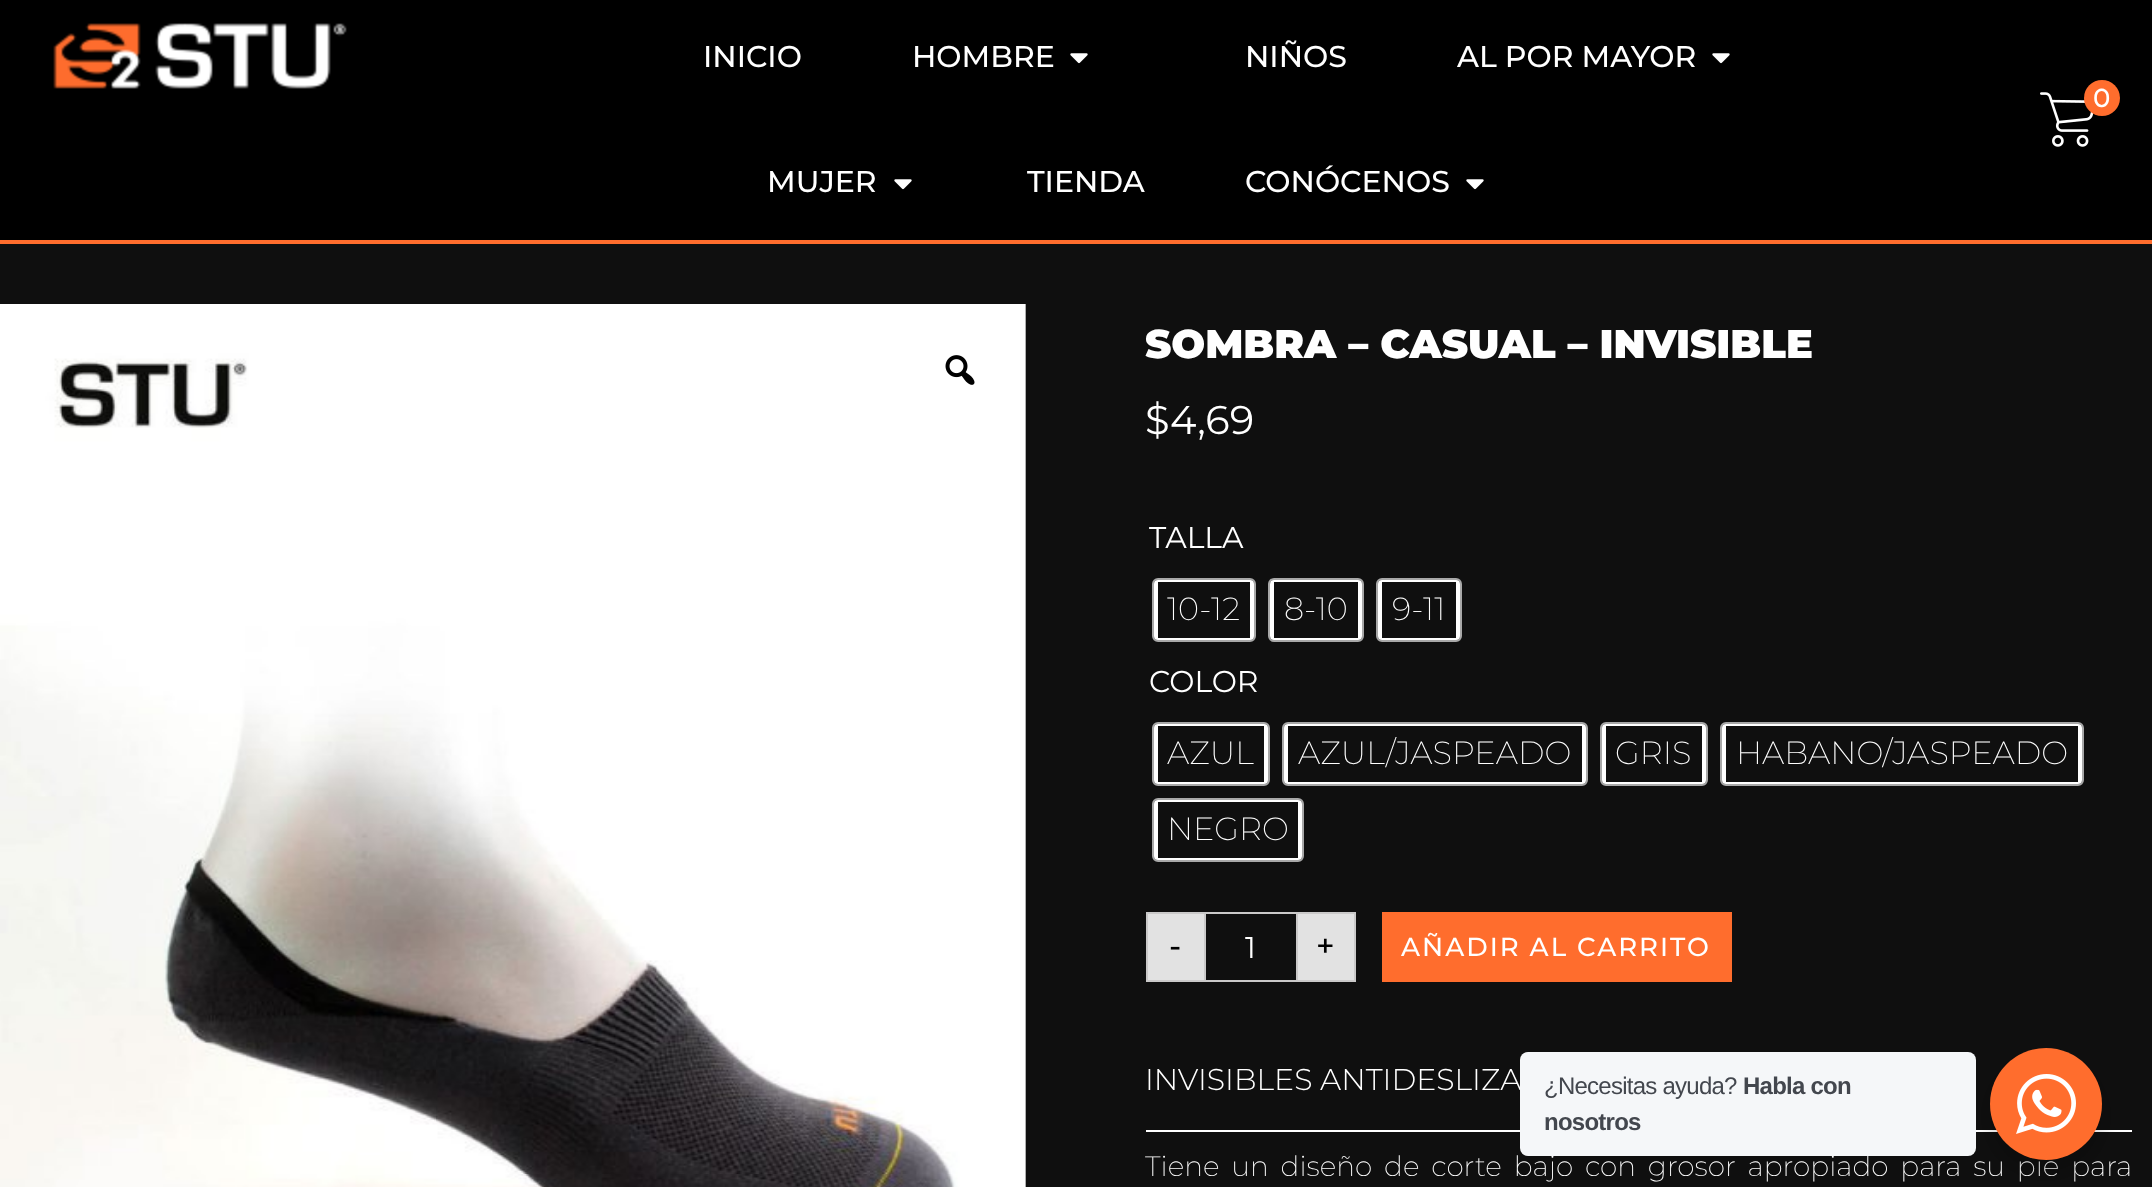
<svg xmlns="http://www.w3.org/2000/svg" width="2152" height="1187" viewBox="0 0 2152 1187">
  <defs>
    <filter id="blur1" x="-50%" y="-200%" width="200%" height="500%"><feGaussianBlur stdDeviation="8"/></filter>
  </defs>
  <rect width="100%" height="100%" fill="#0f0f0f"/>
  <rect x="0" y="0" width="2152" height="240" fill="#000000"/>
  <rect x="0" y="240" width="2152" height="4" fill="#ff6d2d"/>
  <image x="53" y="23" width="294" height="66" href="img1.png"/>
  <text x="703" y="67" font-family="Montserrat" font-size="30" font-weight="500" fill="#ffffff">INICIO</text>
  <text x="912" y="67" font-family="Montserrat" font-size="30" font-weight="500" fill="#ffffff">HOMBRE</text>
  <image x="1070" y="53" width="18" height="11" href="img2.png"/>
  <text x="767" y="192" font-family="Montserrat" font-size="30" font-weight="500" fill="#ffffff">MUJER</text>
  <image x="894" y="179" width="18" height="11" href="img2.png"/>
  <text x="1027" y="192" font-family="Montserrat" font-size="30" font-weight="500" fill="#ffffff">TIENDA</text>
  <text x="1245" y="67" font-family="Montserrat" font-size="30" font-weight="500" fill="#ffffff">NIÑOS</text>
  <text x="1457" y="67" font-family="Montserrat" font-size="30" font-weight="500" fill="#ffffff">AL POR MAYOR</text>
  <image x="1712" y="53" width="18" height="11" href="img2.png"/>
  <text x="1245" y="192" font-family="Montserrat" font-size="30" font-weight="500" fill="#ffffff">CONÓCENOS</text>
  <image x="1466" y="179" width="18" height="11" href="img2.png"/>
  <image x="2040" y="92" width="54" height="55" href="img3.png"/>
  <circle cx="2102" cy="98" r="18" fill="#ff6d2d"/>
  <text x="2093" y="107" font-family="Montserrat" font-size="26" font-weight="500" fill="#ffffff">0</text>
  <image x="0" y="304" width="1026" height="883" href="img4.png"/>
  <image x="945" y="355" width="30" height="30" href="img5.png"/>
  <text x="1145" y="358" font-family="Montserrat" font-size="40" font-weight="900" fill="#ffffff">SOMBRA – CASUAL – INVISIBLE</text>
  <text x="1145" y="434" font-family="Montserrat" font-size="40" fill="#ffffff">$</text>
  <text x="1170" y="434" font-family="Montserrat" font-size="40" fill="#ffffff">4,69</text>
  <text x="1149" y="548" font-family="Montserrat" font-size="30" fill="#ffffff">TALLA</text>
  <rect x="1153" y="579" width="102" height="62" rx="5" fill="none" stroke="#a8a8a8" stroke-width="2"/>
  <rect x="1154" y="580" width="100" height="60" rx="4" fill="#ffffff"/>
  <rect x="1158" y="582" width="92" height="56" fill="#0f0f0f"/>
  <text x="1167" y="620" font-family="Montserrat" font-size="32" font-weight="200" fill="#ffffff">10-12</text>
  <rect x="1269" y="579" width="94" height="62" rx="5" fill="none" stroke="#a8a8a8" stroke-width="2"/>
  <rect x="1270" y="580" width="92" height="60" rx="4" fill="#ffffff"/>
  <rect x="1274" y="582" width="84" height="56" fill="#0f0f0f"/>
  <text x="1284" y="620" font-family="Montserrat" font-size="32" font-weight="200" fill="#ffffff">8-10</text>
  <rect x="1377" y="579" width="84" height="62" rx="5" fill="none" stroke="#a8a8a8" stroke-width="2"/>
  <rect x="1378" y="580" width="82" height="60" rx="4" fill="#ffffff"/>
  <rect x="1382" y="582" width="74" height="56" fill="#0f0f0f"/>
  <text x="1392" y="620" font-family="Montserrat" font-size="32" font-weight="200" fill="#ffffff">9-11</text>
  <text x="1149" y="692" font-family="Montserrat" font-size="30" fill="#ffffff">COLOR</text>
  <rect x="1153" y="723" width="116" height="62" rx="5" fill="none" stroke="#a8a8a8" stroke-width="2"/>
  <rect x="1154" y="724" width="114" height="60" rx="4" fill="#ffffff"/>
  <rect x="1158" y="726" width="106" height="56" fill="#0f0f0f"/>
  <text x="1167" y="764" font-family="Montserrat" font-size="32" font-weight="200" fill="#ffffff">AZUL</text>
  <rect x="1283" y="723" width="304" height="62" rx="5" fill="none" stroke="#a8a8a8" stroke-width="2"/>
  <rect x="1284" y="724" width="302" height="60" rx="4" fill="#ffffff"/>
  <rect x="1288" y="726" width="294" height="56" fill="#0f0f0f"/>
  <text x="1298" y="764" font-family="Montserrat" font-size="32" font-weight="200" fill="#ffffff">AZUL/JASPEADO</text>
  <rect x="1601" y="723" width="106" height="62" rx="5" fill="none" stroke="#a8a8a8" stroke-width="2"/>
  <rect x="1602" y="724" width="104" height="60" rx="4" fill="#ffffff"/>
  <rect x="1606" y="726" width="96" height="56" fill="#0f0f0f"/>
  <text x="1615" y="764" font-family="Montserrat" font-size="32" font-weight="200" fill="#ffffff">GRIS</text>
  <rect x="1721" y="723" width="362" height="62" rx="5" fill="none" stroke="#a8a8a8" stroke-width="2"/>
  <rect x="1722" y="724" width="360" height="60" rx="4" fill="#ffffff"/>
  <rect x="1726" y="726" width="352" height="56" fill="#0f0f0f"/>
  <text x="1736" y="764" font-family="Montserrat" font-size="32" font-weight="200" fill="#ffffff">HABANO/JASPEADO</text>
  <rect x="1153" y="799" width="150" height="62" rx="5" fill="none" stroke="#a8a8a8" stroke-width="2"/>
  <rect x="1154" y="800" width="148" height="60" rx="4" fill="#ffffff"/>
  <rect x="1158" y="802" width="140" height="56" fill="#0f0f0f"/>
  <text x="1167" y="840" font-family="Montserrat" font-size="32" font-weight="200" fill="#ffffff">NEGRO</text>
  <rect x="1147" y="913" width="58" height="68" fill="#e2e2e2" stroke="#cac9c9" stroke-width="2"/>
  <text x="1169" y="957" font-family="Montserrat" font-size="32" font-weight="500" fill="#000000">-</text>
  <rect x="1206" y="912" width="90" height="2" fill="#cac9c9"/>
  <rect x="1206" y="980" width="90" height="2" fill="#cac9c9"/>
  <text x="1245" y="958" font-family="Montserrat" font-size="30" fill="#ffffff">1</text>
  <rect x="1297" y="913" width="58" height="68" fill="#e2e2e2" stroke="#cac9c9" stroke-width="2"/>
  <text x="1316" y="957" font-family="Montserrat" font-size="32" font-weight="500" fill="#000000">+</text>
  <rect x="1382" y="912" width="350" height="70" fill="#ff6d2d"/>
  <text x="1401" y="956" font-family="Montserrat" font-size="26" font-weight="500" letter-spacing="2" fill="#ffffff">AÑADIR AL CARRITO</text>
  <text x="1145" y="1090" font-family="Montserrat" font-size="30" font-weight="300" fill="#ffffff">INVISIBLES ANTIDESLIZA</text>
  <rect x="1146" y="1130" width="986" height="2" fill="#ffffff"/>
  <text x="1145" y="1176" word-spacing="4.75" font-family="Montserrat" font-size="28" font-weight="200" fill="#ffffff">Tiene un diseño de corte bajo con grosor apropiado para su pie para</text>
  <rect x="1986" y="1056" width="120" height="120" rx="60" fill="#000000" fill-opacity="0.14" filter="url(#blur1)"/>
  <rect x="1520" y="1052" width="456" height="104" rx="8" fill="#f5f7f9"/>
  <text x="1544" y="1094" font-family="Liberation Sans" font-size="24" letter-spacing="-0.75" fill="#43474e">¿Necesitas ayuda?</text>
  <text x="1743" y="1094" font-family="Liberation Sans" font-size="24" font-weight="bold" letter-spacing="-0.75" fill="#43474e">Habla con</text>
  <text x="1544" y="1130" font-family="Liberation Sans" font-size="24" font-weight="bold" letter-spacing="-0.75" fill="#43474e">nosotros</text>
  <circle cx="2046" cy="1104" r="56" fill="#ff6d2d"/>
  <image x="2016" y="1074" width="60" height="60" href="img6.png"/>
</svg>
